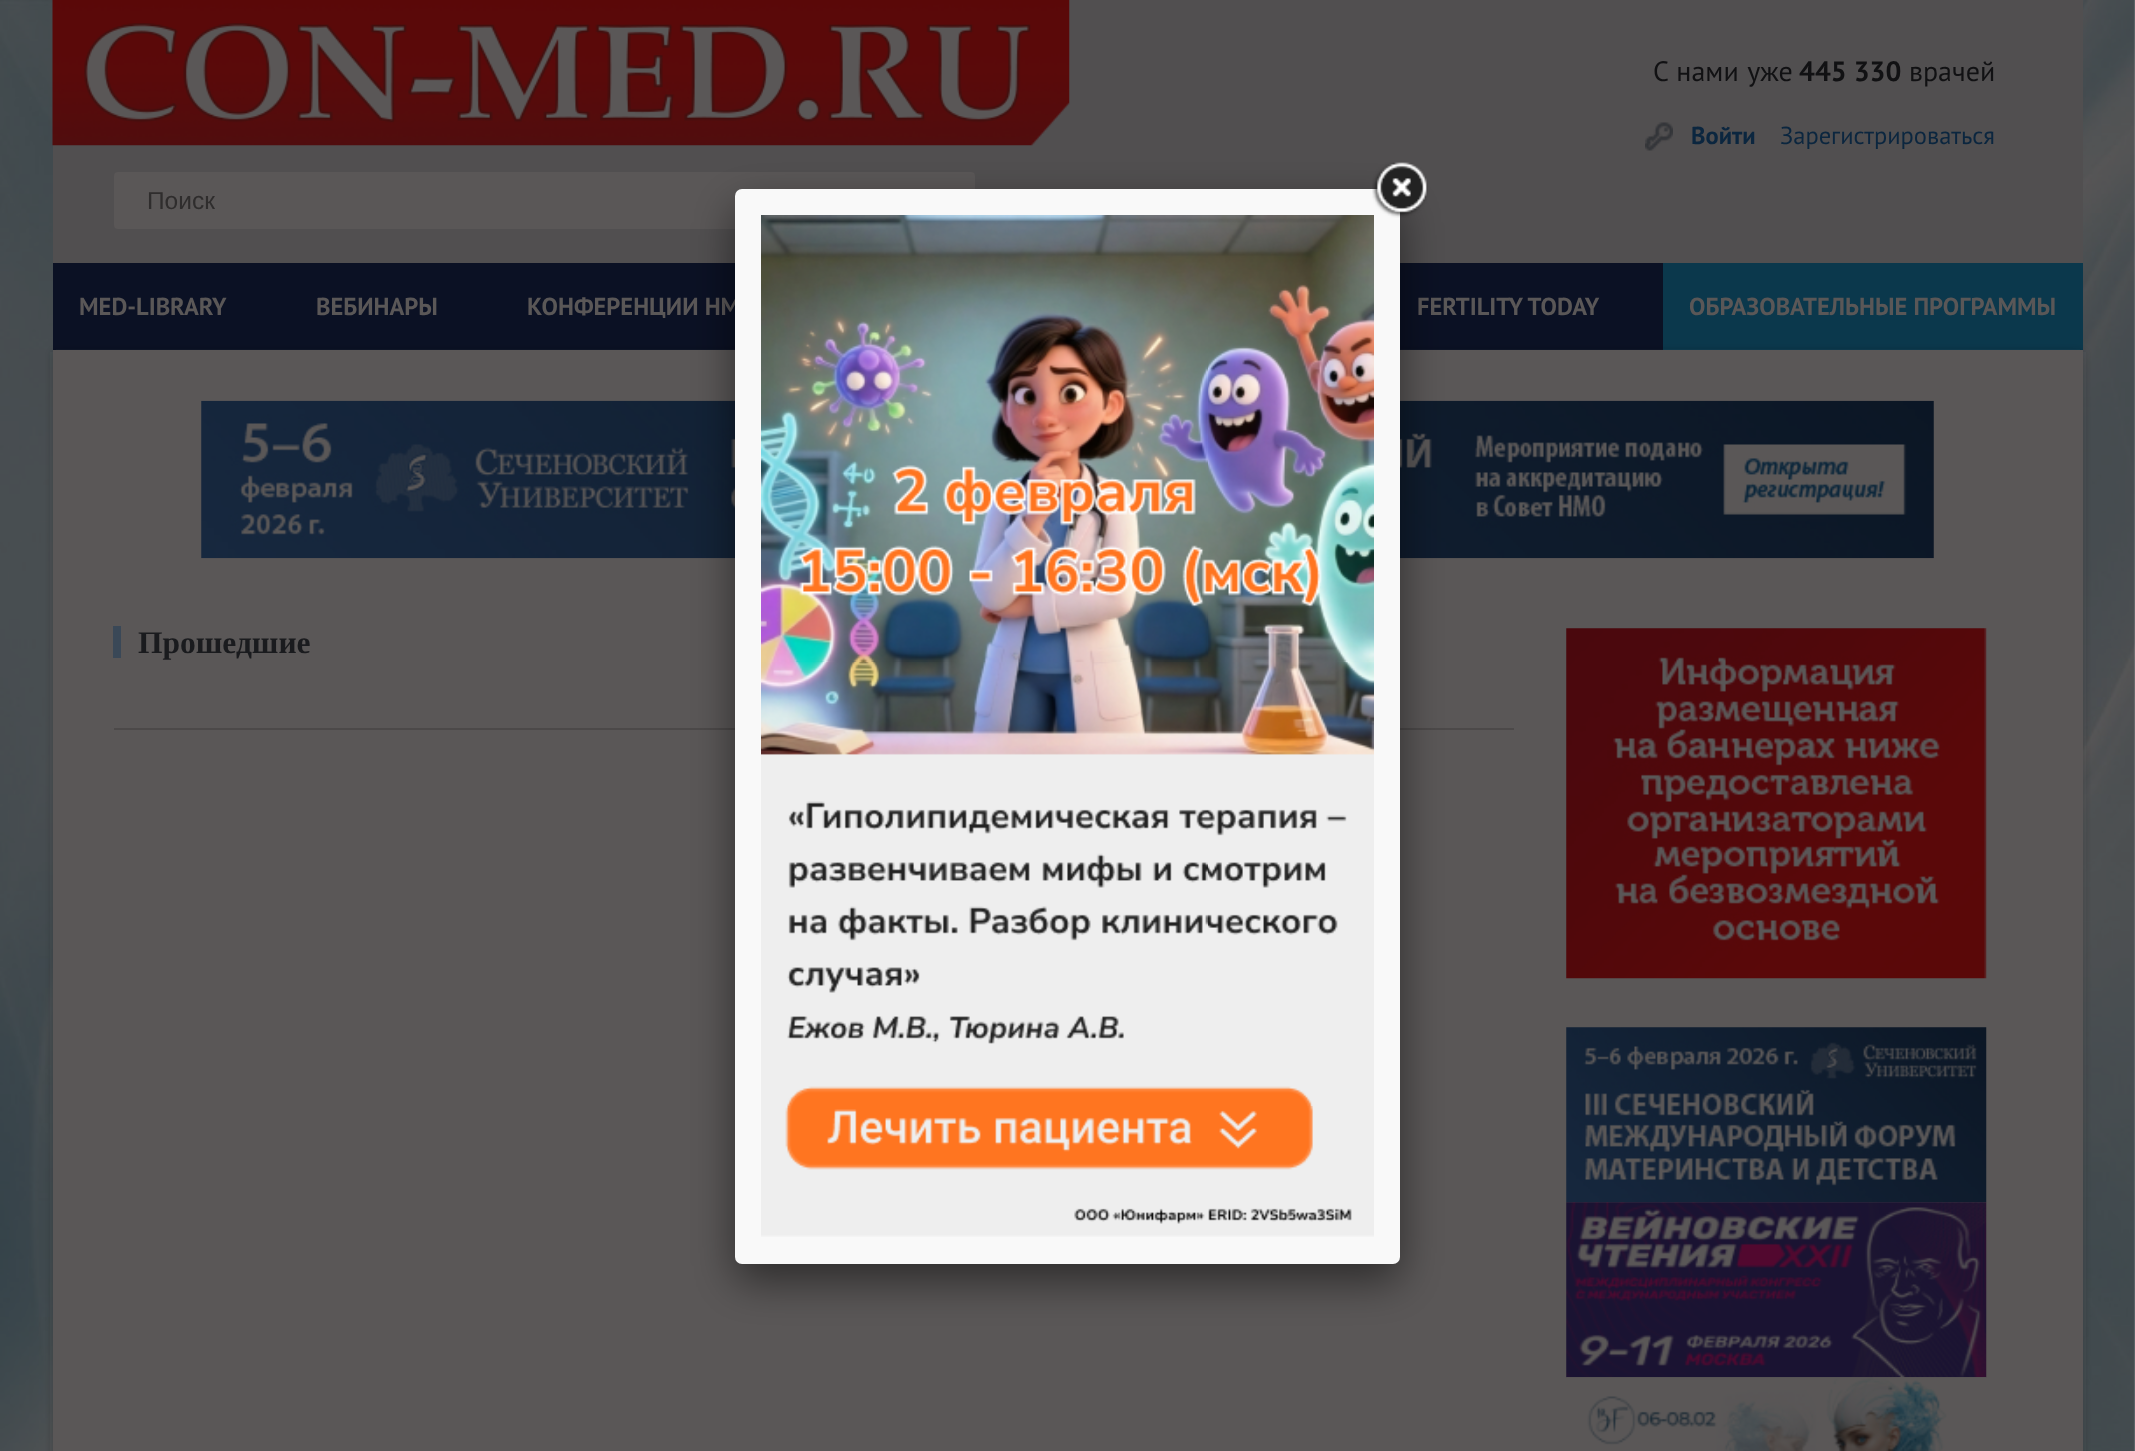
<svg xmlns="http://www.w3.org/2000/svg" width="2135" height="1451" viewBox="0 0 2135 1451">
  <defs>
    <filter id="blur1" x="-50%" y="-200%" width="200%" height="500%"><feGaussianBlur stdDeviation="4.5"/></filter>
    <filter id="blur2" x="-50%" y="-200%" width="200%" height="500%"><feGaussianBlur stdDeviation="22"/></filter>
  </defs>
  <rect width="100%" height="100%" fill="#ffffff"/>
  <image x="0" y="0" width="2135" height="1451" href="img1.png"/>
  <rect x="53" y="0" width="2030" height="263" fill="#514f50"/>
  <text x="1653" y="81" word-spacing="1" font-family="PT Sans" font-size="28" fill="#111113">С нами уже</text>
  <text x="1799" y="81" font-family="PT Sans" font-size="28" font-weight="bold" fill="#111113">445 330</text>
  <text x="1909" y="81" font-family="PT Sans" font-size="28" fill="#111113">врачей</text>
  <image x="1645" y="122" width="28" height="29" href="img2.png"/>
  <text x="1691" y="144" font-family="PT Sans" font-size="24.5" font-weight="bold" fill="#0b263f">Войти</text>
  <text x="1780" y="144" font-family="PT Sans" font-size="24.5" fill="#0b263f">Зарегистрироваться</text>
  <image x="52" y="0" width="1018" height="146" href="img3.png"/>
  <rect x="114" y="172" width="861" height="57" rx="4" fill="#5a5757"/>
  <text x="147" y="209" font-family="Liberation Sans" font-size="24.5" fill="#2f2d2d">Поиск</text>
  <rect x="53" y="263" width="1610" height="87" fill="#0b1124"/>
  <text x="79" y="315" font-family="PT Sans" font-size="24.5" font-weight="bold" fill="#5a5757">MED-LIBRARY</text>
  <text x="316" y="315" font-family="PT Sans" font-size="24.5" font-weight="bold" fill="#5a5757">ВЕБИНАРЫ</text>
  <text x="527" y="315" font-family="PT Sans" font-size="24.5" font-weight="bold" fill="#5a5757">КОНФЕРЕНЦИИ НМ</text>
  <text x="1417" y="315" font-family="PT Sans" font-size="24.5" font-weight="bold" fill="#5a5757">FERTILITY TODAY</text>
  <rect x="1663" y="263" width="420" height="87" fill="#0b384c"/>
  <text x="1689" y="315" font-family="PT Sans" font-size="24.5" font-weight="bold" fill="#5a5757">ОБРАЗОВАТЕЛЬНЫЕ ПРОГРАММЫ</text>
  <rect x="53" y="352" width="2030" height="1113" fill="#2b2a2c" fill-opacity="0.31" filter="url(#blur1)"/>
  <rect x="53" y="350" width="2030" height="1101" fill="#5a5757"/>
  <image x="201" y="400" width="1733" height="159" href="img4.png"/>
  <rect x="114" y="728" width="1400" height="2" fill="#4c4949"/>
  <rect x="113" y="626" width="8" height="32" fill="#3a4857"/>
  <text x="138" y="653" font-family="Liberation Serif" font-size="31.5" font-weight="bold" fill="#1a1b1e">Прошедшие</text>
  <image x="1566" y="628" width="421" height="351" href="img5.png"/>
  <image x="1566" y="1027" width="421" height="176" href="img6.png"/>
  <image x="1566" y="1202" width="421" height="176" href="img7.png"/>
  <image x="1566" y="1377" width="420" height="74" href="img8.png"/>
  <rect x="735" y="207" width="665" height="1074" rx="7" fill="#000000" fill-opacity="0.5" filter="url(#blur2)"/>
  <rect x="735" y="189" width="665" height="1075" rx="7" fill="#f9f9f9"/>
  <image x="761" y="215" width="613" height="1022" href="img10.png"/>
  <image x="1372" y="162" width="56" height="56" href="img9.png"/>
</svg>
